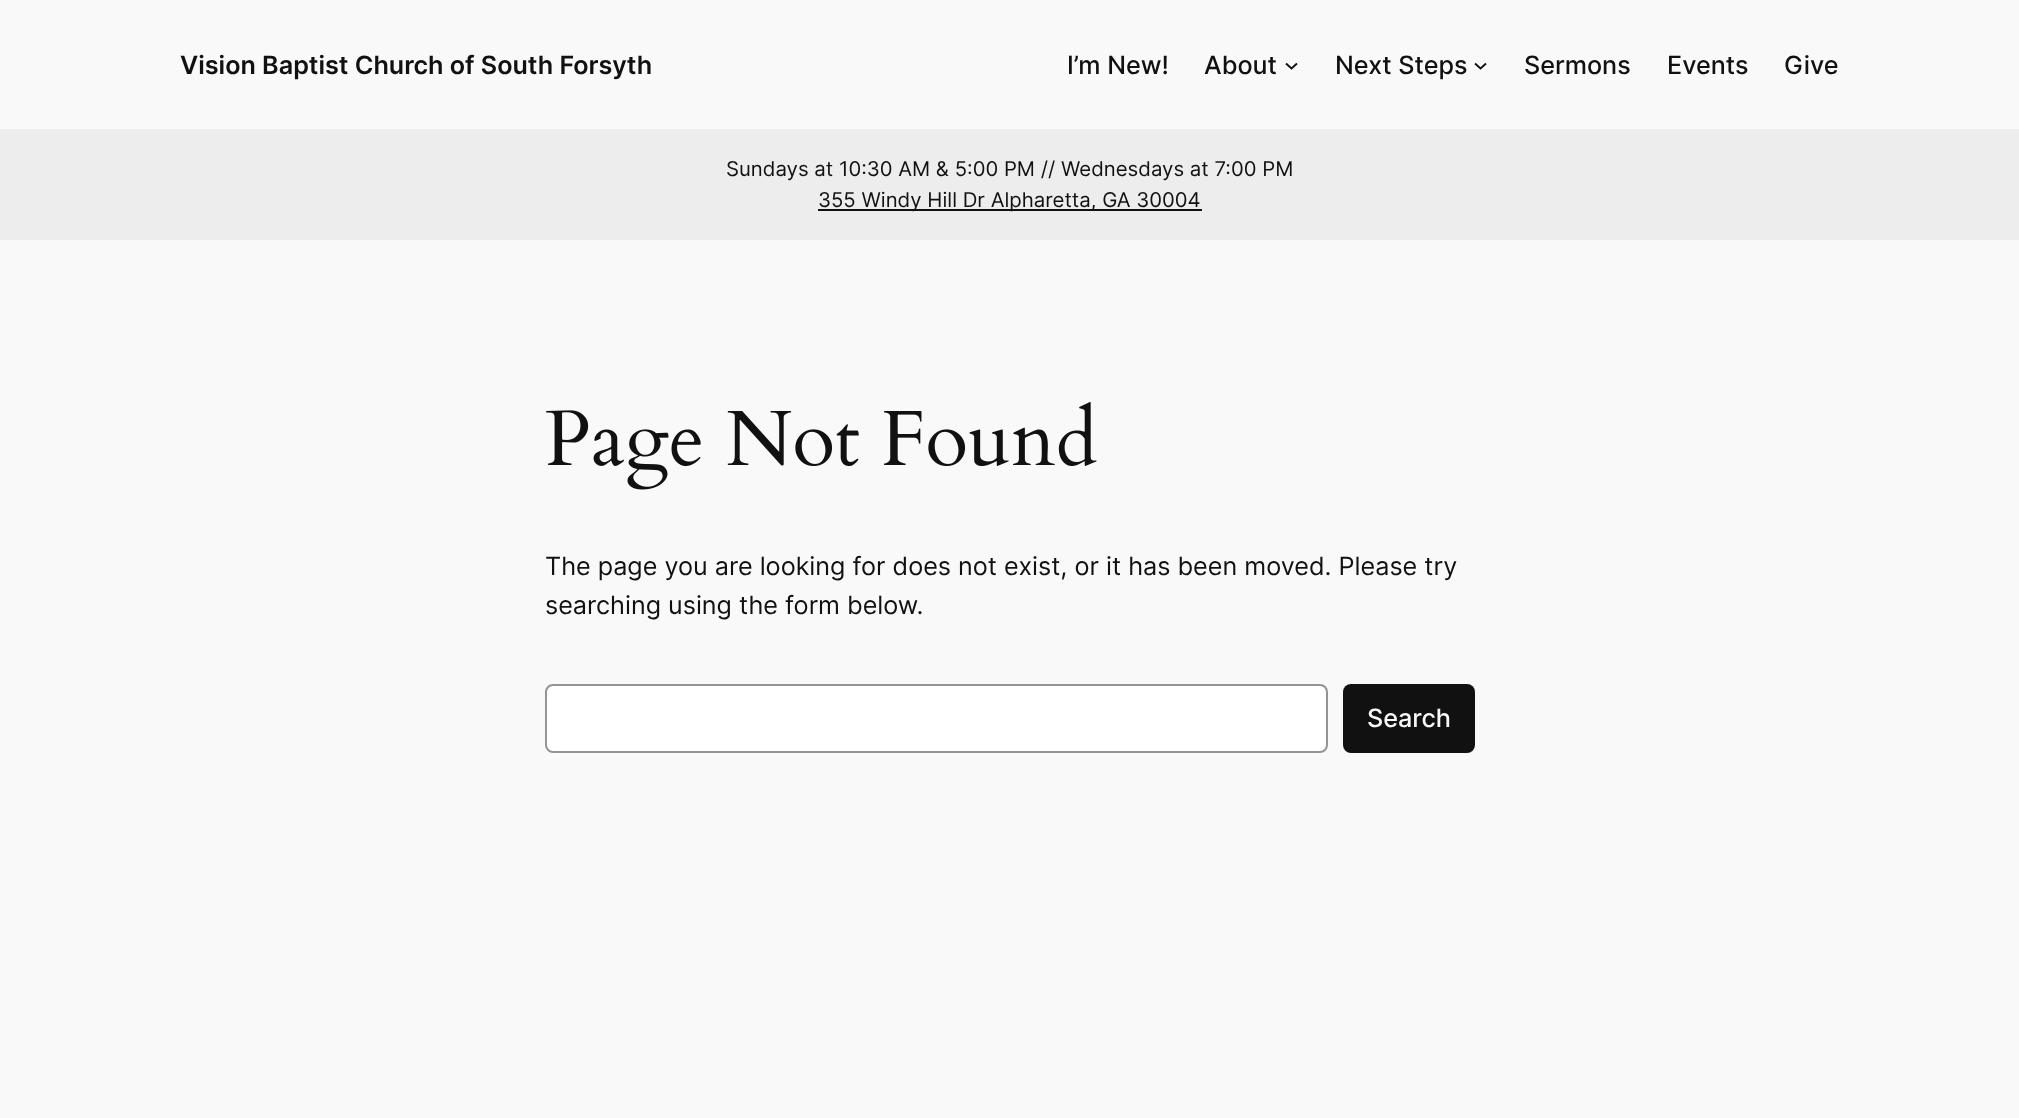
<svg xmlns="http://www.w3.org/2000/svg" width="2019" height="1118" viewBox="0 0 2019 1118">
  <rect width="100%" height="100%" fill="#f9f9f9"/>
  <text x="180" y="74" font-family="Inter" font-size="25.2" font-weight="600" fill="#111111">Vision Baptist Church of South Forsyth</text>
  <text x="1067" y="74" font-family="Inter" font-size="25.2" font-weight="500" fill="#111111">I’m New!</text>
  <text x="1204" y="74" font-family="Inter" font-size="25.2" font-weight="500" fill="#111111">About</text>
  <path d="M1286 63.5L1291.5 68.5L1297 63.5" fill="none" stroke="#111111" stroke-width="1.9"/>
  <text x="1335" y="74" font-family="Inter" font-size="25.2" font-weight="500" fill="#111111">Next Steps</text>
  <path d="M1475 63.5L1480.5 68.5L1486 63.5" fill="none" stroke="#111111" stroke-width="1.9"/>
  <text x="1524" y="74" font-family="Inter" font-size="25.2" font-weight="500" fill="#111111">Sermons</text>
  <text x="1667" y="74" font-family="Inter" font-size="25.2" font-weight="500" fill="#111111">Events</text>
  <text x="1784" y="74" font-family="Inter" font-size="25.2" font-weight="500" fill="#111111">Give</text>
  <rect x="0" y="129" width="2019" height="111" fill="#ededed"/>
  <text x="726" y="176" font-family="Inter" font-size="20.4" fill="#111111">Sundays at 10:30 AM &amp; 5:00 PM // Wednesdays at 7:00 PM</text>
  <rect x="818" y="209" width="384" height="2" fill="#111111"/>
  <text x="818" y="207" font-family="Inter" font-size="20.4" fill="#111111">355 Windy Hill Dr Alpharetta, GA 30004</text>
  <image x="546" y="402" width="551" height="88" href="img1.png"/>
  <text x="545" y="575" font-family="Inter" font-size="25.2" fill="#111111">The page you are looking for does not exist, or it has been moved. Please try</text>
  <text x="545" y="614" font-family="Inter" font-size="25.2" fill="#111111">searching using the form below.</text>
  <rect x="546" y="685" width="781" height="67" rx="7" fill="#ffffff" stroke="#949494" stroke-width="2"/>
  <rect x="1343" y="684" width="132" height="69" rx="8" fill="#111111"/>
  <text x="1367" y="727" font-family="Inter" font-size="25.2" font-weight="500" fill="#f9f9f9">Search</text>
</svg>
